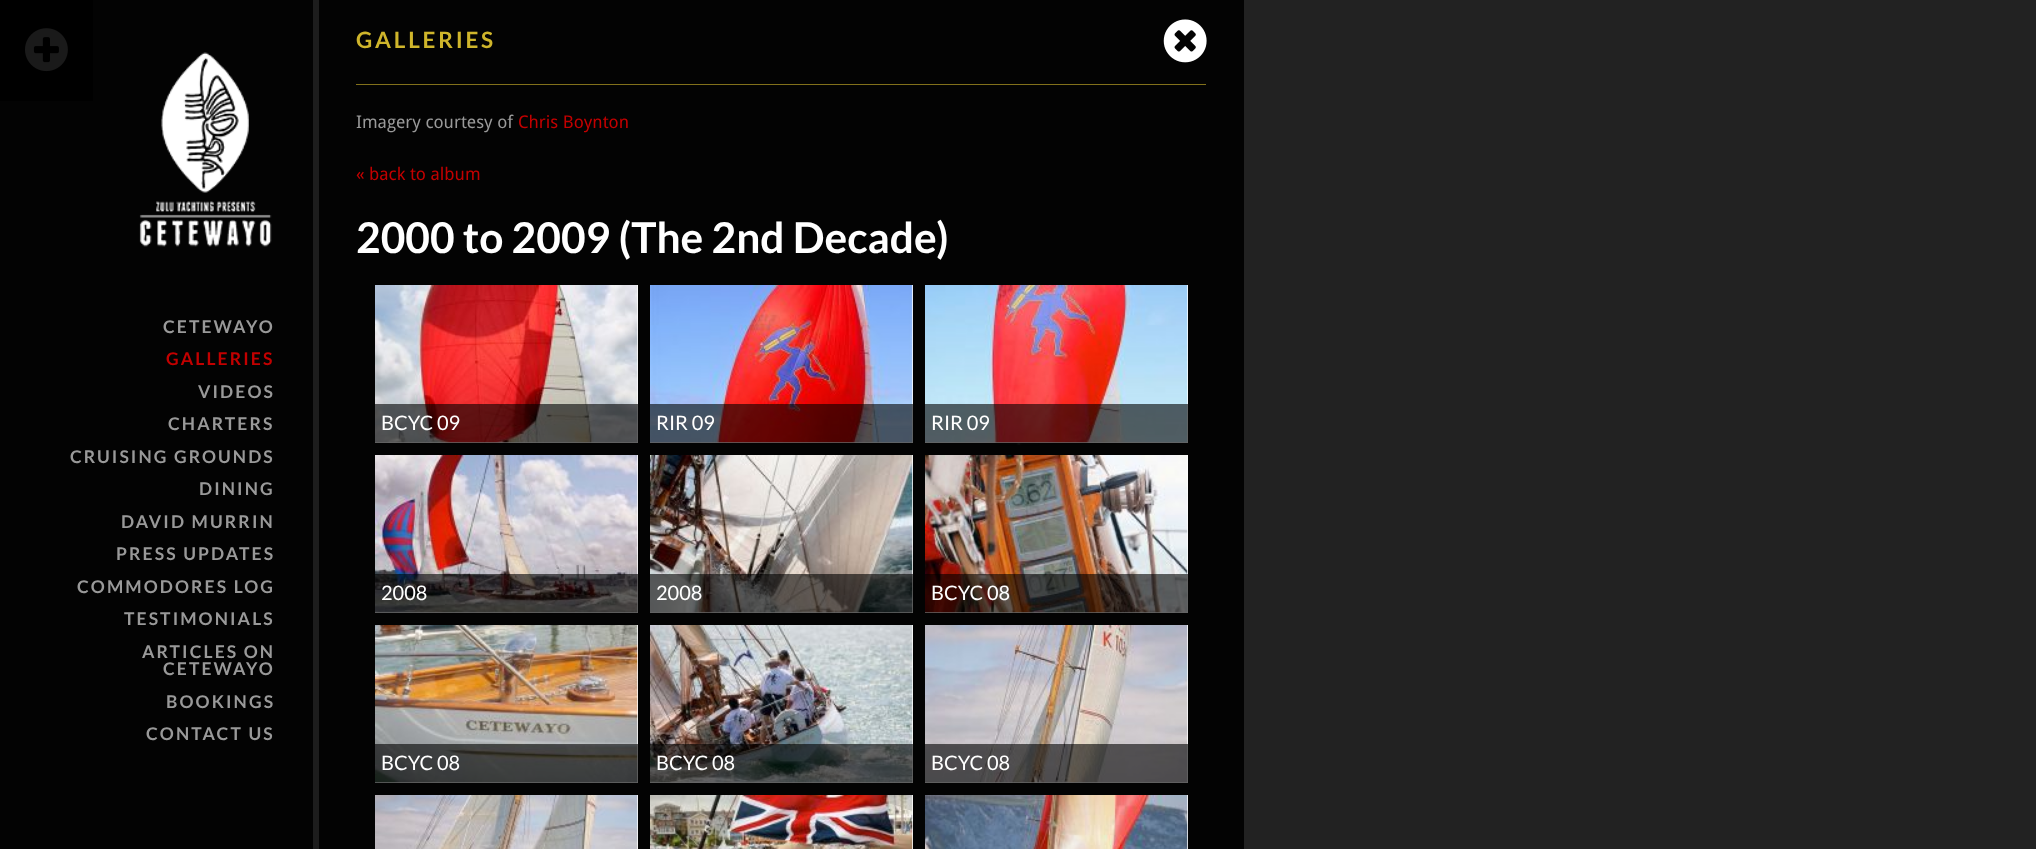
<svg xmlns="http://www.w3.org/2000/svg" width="2036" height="849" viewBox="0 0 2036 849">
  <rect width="100%" height="100%" fill="#222222"/>
  <rect x="0" y="0" width="313" height="849" fill="#030303"/>
  <rect x="319" y="0" width="925" height="849" fill="#030303"/>
  <image x="999" y="443" width="40" height="3" href="img1.png"/>
  <rect x="0" y="0" width="93" height="101" fill="#000000"/>
  <image x="25" y="28" width="43" height="44" href="img2.png"/>
  <rect x="313" y="0" width="6" height="849" fill="#1d1d1d"/>
  <image x="139" y="52" width="133" height="195" href="img3.png"/>
  <text x="163" y="333" font-family="Lato" font-size="17.5" font-weight="bold" letter-spacing="2.1" fill="#999999">CETEWAYO</text>
  <text x="166" y="365" font-family="Lato" font-size="17.5" font-weight="bold" letter-spacing="2.1" fill="#c20000">GALLERIES</text>
  <text x="198" y="398" font-family="Lato" font-size="17.5" font-weight="bold" letter-spacing="2.1" fill="#999999">VIDEOS</text>
  <text x="168" y="430" font-family="Lato" font-size="17.5" font-weight="bold" letter-spacing="2.1" fill="#999999">CHARTERS</text>
  <text x="70" y="463" font-family="Lato" font-size="17.5" font-weight="bold" letter-spacing="2.1" fill="#999999">CRUISING GROUNDS</text>
  <text x="199" y="495" font-family="Lato" font-size="17.5" font-weight="bold" letter-spacing="2.1" fill="#999999">DINING</text>
  <text x="121" y="528" font-family="Lato" font-size="17.5" font-weight="bold" letter-spacing="2.1" fill="#999999">DAVID MURRIN</text>
  <text x="116" y="560" font-family="Lato" font-size="17.5" font-weight="bold" letter-spacing="2.1" fill="#999999">PRESS UPDATES</text>
  <text x="77" y="593" font-family="Lato" font-size="17.5" font-weight="bold" letter-spacing="2.1" fill="#999999">COMMODORES LOG</text>
  <text x="124" y="625" font-family="Lato" font-size="17.5" font-weight="bold" letter-spacing="2.1" fill="#999999">TESTIMONIALS</text>
  <text x="142" y="658" font-family="Lato" font-size="17.5" font-weight="bold" letter-spacing="2.1" fill="#999999">ARTICLES ON</text>
  <text x="163" y="675" font-family="Lato" font-size="17.5" font-weight="bold" letter-spacing="2.1" fill="#999999">CETEWAYO</text>
  <text x="166" y="708" font-family="Lato" font-size="17.5" font-weight="bold" letter-spacing="2.1" fill="#999999">BOOKINGS</text>
  <text x="146" y="740" font-family="Lato" font-size="17.5" font-weight="bold" letter-spacing="2.1" fill="#999999">CONTACT US</text>
  <rect x="356" y="84" width="850" height="1" fill="#82711b"/>
  <text x="356" y="48" font-family="Lato" font-size="22.5" font-weight="bold" letter-spacing="2.75" fill="#cfb52b">GALLERIES</text>
  <image x="1163" y="19" width="44" height="44" href="img4.png"/>
  <text x="356" y="128" font-family="Droid Sans" font-size="17.5" fill="#999999">Imagery courtesy of</text>
  <text x="518" y="128" font-family="Droid Sans" font-size="17.5" fill="#c20000">Chris Boynton</text>
  <text x="356" y="180" font-family="Droid Sans" font-size="17.5" fill="#c20000">« back to album</text>
  <text x="356" y="253" font-family="Lato" font-size="42.5" font-weight="bold" fill="#ffffff">2000 to 2009 (The 2nd Decade)</text>
  <rect x="375" y="285" width="263" height="158" fill="#ffffff"/>
  <image x="375" y="285" width="263" height="158" href="img5.png"/>
  <rect x="375" y="404" width="263" height="39" fill="#000000" fill-opacity="0.6"/>
  <text x="381" y="430" font-family="Lato" font-size="20" fill="#ffffff">BCYC 09</text>
  <rect x="650" y="285" width="263" height="158" fill="#ffffff"/>
  <image x="650" y="285" width="263" height="158" href="img6.png"/>
  <rect x="650" y="404" width="263" height="39" fill="#000000" fill-opacity="0.6"/>
  <text x="656" y="430" font-family="Lato" font-size="20" fill="#ffffff">RIR 09</text>
  <rect x="925" y="285" width="263" height="158" fill="#ffffff"/>
  <image x="925" y="285" width="263" height="158" href="img7.png"/>
  <rect x="925" y="404" width="263" height="39" fill="#000000" fill-opacity="0.6"/>
  <text x="931" y="430" font-family="Lato" font-size="20" fill="#ffffff">RIR 09</text>
  <rect x="375" y="455" width="263" height="158" fill="#ffffff"/>
  <image x="375" y="455" width="263" height="158" href="img8.png"/>
  <rect x="375" y="574" width="263" height="39" fill="#000000" fill-opacity="0.6"/>
  <text x="381" y="600" font-family="Lato" font-size="20" fill="#ffffff">2008</text>
  <rect x="650" y="455" width="263" height="158" fill="#ffffff"/>
  <image x="650" y="455" width="263" height="158" href="img9.png"/>
  <rect x="650" y="574" width="263" height="39" fill="#000000" fill-opacity="0.6"/>
  <text x="656" y="600" font-family="Lato" font-size="20" fill="#ffffff">2008</text>
  <rect x="925" y="455" width="263" height="158" fill="#ffffff"/>
  <image x="925" y="455" width="263" height="158" href="img10.png"/>
  <rect x="925" y="574" width="263" height="39" fill="#000000" fill-opacity="0.6"/>
  <text x="931" y="600" font-family="Lato" font-size="20" fill="#ffffff">BCYC 08</text>
  <rect x="375" y="625" width="263" height="158" fill="#ffffff"/>
  <image x="375" y="625" width="263" height="158" href="img11.png"/>
  <rect x="375" y="744" width="263" height="39" fill="#000000" fill-opacity="0.6"/>
  <text x="381" y="770" font-family="Lato" font-size="20" fill="#ffffff">BCYC 08</text>
  <rect x="650" y="625" width="263" height="158" fill="#ffffff"/>
  <image x="650" y="625" width="263" height="158" href="img12.png"/>
  <rect x="650" y="744" width="263" height="39" fill="#000000" fill-opacity="0.6"/>
  <text x="656" y="770" font-family="Lato" font-size="20" fill="#ffffff">BCYC 08</text>
  <rect x="925" y="625" width="263" height="158" fill="#ffffff"/>
  <image x="925" y="625" width="263" height="158" href="img13.png"/>
  <rect x="925" y="744" width="263" height="39" fill="#000000" fill-opacity="0.6"/>
  <text x="931" y="770" font-family="Lato" font-size="20" fill="#ffffff">BCYC 08</text>
  <rect x="637" y="795" width="1" height="54" fill="#ffffff"/>
  <image x="375" y="795" width="263" height="54" href="img14.png"/>
  <rect x="912" y="795" width="1" height="54" fill="#ffffff"/>
  <image x="650" y="795" width="263" height="54" href="img15.png"/>
  <rect x="1187" y="795" width="1" height="54" fill="#ffffff"/>
  <image x="925" y="795" width="263" height="54" href="img16.png"/>
</svg>
